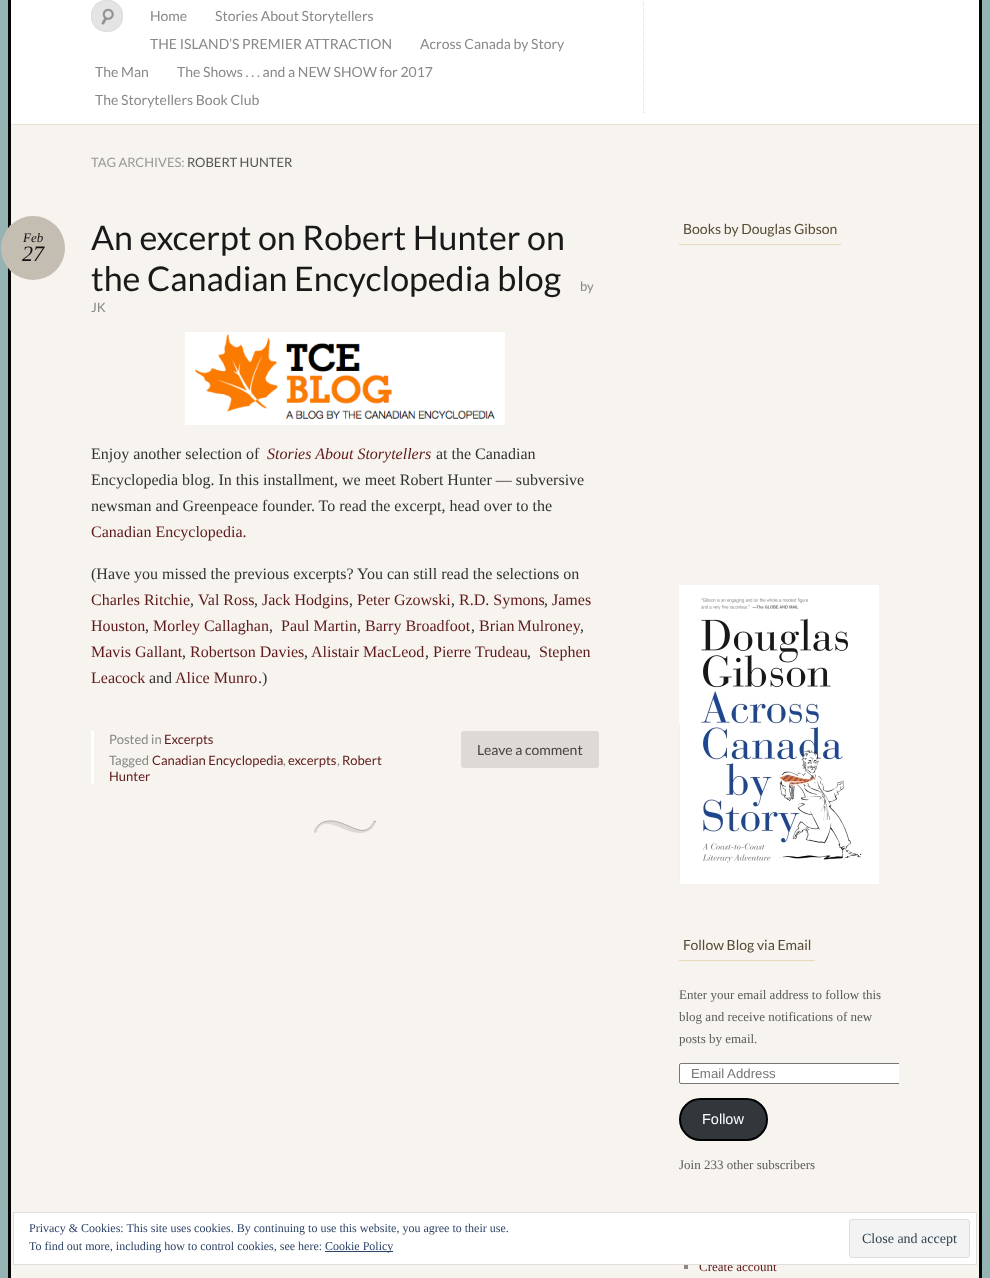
<svg xmlns="http://www.w3.org/2000/svg" width="990" height="1278" viewBox="0 0 990 1278">
  <defs>
    <clipPath id="clip1"><rect x="679" y="205" width="220" height="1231"/></clipPath>
  </defs>
  <rect width="100%" height="100%" fill="#95b3b3"/>
  <rect x="11" y="125" width="968" height="1153" fill="#f7f3ee"/>
  <rect x="9.5" y="-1.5" width="971" height="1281" fill="none" stroke="#050505" stroke-width="3"/>
  <rect x="11" y="0" width="968" height="124" fill="#ffffff"/>
  <rect x="11" y="124" width="968" height="1" fill="#e9e0d1"/>
  <rect x="91" y="0" width="32" height="32" rx="15" fill="#e4e4e4"/>
  <image x="101" y="8" width="13" height="17" href="img1.png"/>
  <rect x="91.5" y="0.5" width="31" height="31" rx="14.5" fill="none" stroke="#dddddd"/>
  <path d="M643.5 2V114" fill="none" stroke="#dddddd" stroke-dasharray="1 1"/>
  <text x="150" y="21" font-family="Lato" font-size="14" fill="#888888">Home</text>
  <text x="215" y="21" font-family="Lato" font-size="14" fill="#888888">Stories About Storytellers</text>
  <text x="150" y="49" font-family="Lato" font-size="14" fill="#888888">THE ISLAND’S PREMIER ATTRACTION</text>
  <text x="420" y="49" font-family="Lato" font-size="14" fill="#888888">Across Canada by Story</text>
  <text x="95" y="77" font-family="Lato" font-size="14" fill="#888888">The Man</text>
  <text x="177" y="77" font-family="Lato" font-size="14" fill="#888888">The Shows . . . and a NEW SHOW for 2017</text>
  <text x="95" y="105" font-family="Lato" font-size="14" fill="#888888">The Storytellers Book Club</text>
  <text x="91" y="167" font-family="Lato" font-size="13" fill="#999999">TAG ARCHIVES:</text>
  <text x="187" y="167" font-family="Lato" font-size="13" fill="#555555">ROBERT HUNTER</text>
  <image x="314" y="820" width="63" height="13" href="img2.png"/>
  <text x="91" y="250" font-family="Lato" font-size="34" fill="#191919">An excerpt on Robert Hunter on</text>
  <circle cx="33" cy="248" r="32" fill="#c4bdb2"/>
  <text x="23" y="242" font-family="Liberation Serif" font-size="13" font-style="italic" fill="#111111">Feb</text>
  <text x="22" y="261" font-family="Liberation Serif" font-size="22" font-style="italic" fill="#111111">27</text>
  <text x="580" y="291" font-family="Lato" font-size="13" fill="#888888">by</text>
  <text x="91" y="312" font-family="Lato" font-size="13" fill="#888888">JK</text>
  <text x="91" y="291" font-family="Lato" font-size="34" fill="#191919">the Canadian Encyclopedia blog</text>
  <image x="185" y="332" width="320" height="93" href="img3.png"/>
  <text x="91" y="459" font-family="Liberation Serif" font-size="16" fill="#333333">Enjoy another selection of</text>
  <text x="267" y="459" font-family="Liberation Serif" font-size="16" font-style="italic" fill="#5e191a">Stories About Storytellers</text>
  <text x="436" y="459" font-family="Liberation Serif" font-size="16" fill="#333333">at the Canadian</text>
  <text x="91" y="485" font-family="Liberation Serif" font-size="16" fill="#333333">Encyclopedia blog. In this installment, we meet Robert Hunter — subversive</text>
  <text x="91" y="511" font-family="Liberation Serif" font-size="16" fill="#333333">newsman and Greenpeace founder. To read the excerpt, head over to the</text>
  <text x="91" y="537" font-family="Liberation Serif" font-size="16" fill="#5e191a">Canadian Encyclopedia.</text>
  <text x="91" y="579" font-family="Liberation Serif" font-size="16" fill="#333333">(Have you missed the previous excerpts? You can still read the selections on</text>
  <text x="91" y="605" font-family="Liberation Serif" font-size="16" fill="#5e191a">Charles Ritchie</text>
  <text x="190" y="605" font-family="Liberation Serif" font-size="16" fill="#333333">,</text>
  <text x="198" y="605" font-family="Liberation Serif" font-size="16" fill="#5e191a">Val Ross</text>
  <text x="254" y="605" font-family="Liberation Serif" font-size="16" fill="#333333">,</text>
  <text x="262" y="605" font-family="Liberation Serif" font-size="16" fill="#5e191a">Jack Hodgins</text>
  <text x="349" y="605" font-family="Liberation Serif" font-size="16" fill="#333333">,</text>
  <text x="357" y="605" font-family="Liberation Serif" font-size="16" fill="#5e191a">Peter Gzowski</text>
  <text x="451" y="605" font-family="Liberation Serif" font-size="16" fill="#333333">,</text>
  <text x="459" y="605" font-family="Liberation Serif" font-size="16" fill="#5e191a">R.D. Symons</text>
  <text x="544" y="605" font-family="Liberation Serif" font-size="16" fill="#333333">,</text>
  <text x="552" y="605" font-family="Liberation Serif" font-size="16" fill="#5e191a">James</text>
  <text x="91" y="631" font-family="Liberation Serif" font-size="16" fill="#5e191a">Houston</text>
  <text x="145" y="631" font-family="Liberation Serif" font-size="16" fill="#333333">,</text>
  <text x="153" y="631" font-family="Liberation Serif" font-size="16" fill="#5e191a">Morley Callaghan</text>
  <text x="269" y="631" font-family="Liberation Serif" font-size="16" fill="#333333">,</text>
  <text x="281" y="631" font-family="Liberation Serif" font-size="16" fill="#5e191a">Paul Martin</text>
  <text x="357" y="631" font-family="Liberation Serif" font-size="16" fill="#333333">,</text>
  <text x="365" y="631" font-family="Liberation Serif" font-size="16" fill="#5e191a">Barry Broadfoot</text>
  <text x="471" y="631" font-family="Liberation Serif" font-size="16" fill="#333333">,</text>
  <text x="479" y="631" word-spacing="-1" font-family="Liberation Serif" font-size="16" fill="#5e191a">Brian Mulroney</text>
  <text x="580" y="631" font-family="Liberation Serif" font-size="16" fill="#333333">,</text>
  <text x="91" y="657" font-family="Liberation Serif" font-size="16" fill="#5e191a">Mavis Gallant</text>
  <text x="182" y="657" font-family="Liberation Serif" font-size="16" fill="#333333">,</text>
  <text x="190" y="657" font-family="Liberation Serif" font-size="16" fill="#5e191a">Robertson Davies</text>
  <text x="304" y="657" font-family="Liberation Serif" font-size="16" fill="#333333">,</text>
  <text x="311" y="657" font-family="Liberation Serif" font-size="16" fill="#5e191a">Alistair MacLeod</text>
  <text x="425" y="657" font-family="Liberation Serif" font-size="16" fill="#333333">,</text>
  <text x="433" y="657" font-family="Liberation Serif" font-size="16" fill="#5e191a">Pierre Trudeau</text>
  <text x="527" y="657" font-family="Liberation Serif" font-size="16" fill="#333333">,</text>
  <text x="539" y="657" font-family="Liberation Serif" font-size="16" fill="#5e191a">Stephen</text>
  <text x="91" y="683" font-family="Liberation Serif" font-size="16" fill="#5e191a">Leacock</text>
  <text x="149" y="683" font-family="Liberation Serif" font-size="16" fill="#333333">and</text>
  <text x="175" y="683" font-family="Liberation Serif" font-size="16" fill="#5e191a">Alice Munro</text>
  <text x="258" y="683" font-family="Liberation Serif" font-size="16" fill="#333333">.)</text>
  <rect x="91" y="731" width="3" height="53" fill="#ffffff"/>
  <text x="109" y="744" font-family="Lato" font-size="13" fill="#888888">Posted in</text>
  <text x="164" y="744" font-family="Lato" font-size="13" fill="#5e191a">Excerpts</text>
  <rect x="461" y="731" width="138" height="37" rx="3" fill="#ded9d4"/>
  <text x="477" y="755" font-family="Lato" font-size="14" fill="#444444">Leave a comment</text>
  <text x="109" y="765" font-family="Lato" font-size="13" fill="#888888">Tagged</text>
  <text x="152" y="765" font-family="Lato" font-size="13" fill="#5e191a">Canadian Encyclopedia</text>
  <text x="283" y="765" font-family="Lato" font-size="13" fill="#888888">,</text>
  <text x="288" y="765" font-family="Lato" font-size="13" fill="#5e191a">excerpts</text>
  <text x="337" y="765" font-family="Lato" font-size="13" fill="#888888">,</text>
  <text x="342" y="765" font-family="Lato" font-size="13" fill="#5e191a">Robert</text>
  <text x="109" y="781" font-family="Lato" font-size="13" fill="#5e191a">Hunter</text>
  <rect x="679" y="244" width="162" height="1" fill="#e7d9b9"/>
  <text x="683" y="234" font-family="Lato" font-size="14" fill="#554b34">Books by Douglas Gibson</text>
  <image x="679" y="585" width="200" height="299" href="img4.png"/>
  <rect x="679" y="960" width="136" height="1" fill="#e7d9b9"/>
  <text x="683" y="950" font-family="Lato" font-size="14" fill="#554b34">Follow Blog via Email</text>
  <text x="679" y="999" font-family="Liberation Serif" font-size="13" fill="#5b5b5b">Enter your email address to follow this</text>
  <text x="679" y="1021" font-family="Liberation Serif" font-size="13" fill="#5b5b5b">blog and receive notifications of new</text>
  <text x="679" y="1043" font-family="Liberation Serif" font-size="13" fill="#5b5b5b">posts by email.</text>
  <path d="M681 1063H899V1084H681C680 1084 679 1083 679 1082V1065C679 1064 680 1063 681 1063Z" fill="#ffffff"/>
  <g clip-path="url(#clip1)">
    <rect x="679.5" y="1063.5" width="232" height="20" rx="1.5" fill="none" stroke="#767676"/>
  </g>
  <text x="691" y="1078" font-family="Liberation Sans" font-size="13.25" fill="#757575">Email Address</text>
  <rect x="680" y="1099" width="87" height="41" rx="20.5" fill="#32373c" stroke="#000000" stroke-width="2"/>
  <text x="702" y="1124" font-family="Liberation Sans" font-size="14.5" fill="#ffffff">Follow</text>
  <text x="679" y="1169" font-family="Liberation Serif" font-size="13" fill="#5b5b5b">Join 233 other subscribers</text>
  <rect x="684" y="1265" width="4" height="4" fill="#8d8881"/>
  <text x="699" y="1271" font-family="Liberation Serif" font-size="13" fill="#5e191a">Create account</text>
  <rect x="13.5" y="1212.5" width="963" height="52" fill="#ffffff" stroke="#dedede"/>
  <text x="29" y="1232" font-family="Liberation Serif" font-size="12" fill="#2e4467">Privacy &amp; Cookies: This site uses cookies. By continuing to use this website, you agree to their use.</text>
  <text x="29" y="1250" font-family="Liberation Serif" font-size="12" fill="#2e4467">To find out more, including how to control cookies, see here:</text>
  <rect x="325" y="1251" width="68" height="1" fill="#2e4467"/>
  <text x="325" y="1250" font-family="Liberation Serif" font-size="12" fill="#2e4467">Cookie Policy</text>
  <rect x="849.5" y="1219.5" width="120" height="38" rx="2.5" fill="#f3f3f3" stroke="#dedede"/>
  <text x="862" y="1243" font-family="Liberation Serif" font-size="14" fill="#2e4453">Close and accept</text>
</svg>
